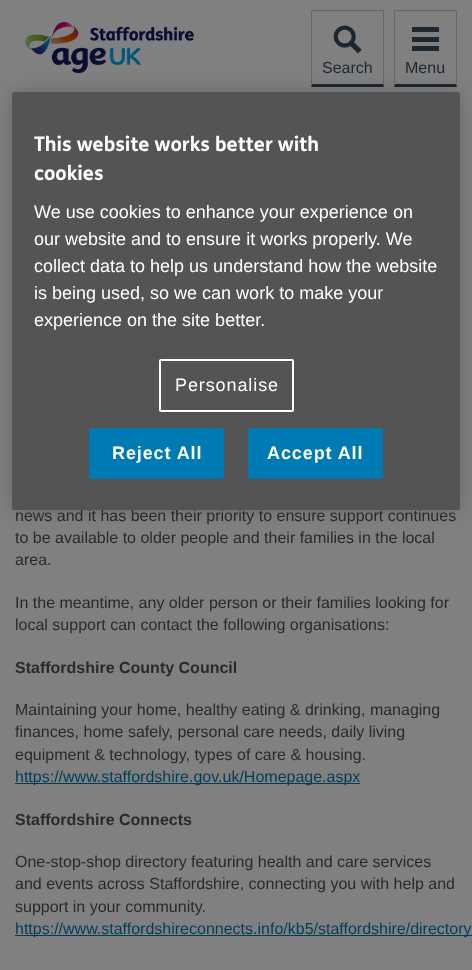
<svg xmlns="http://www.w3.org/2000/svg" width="472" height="970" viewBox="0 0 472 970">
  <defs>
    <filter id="blur1" x="-50%" y="-200%" width="200%" height="500%"><feGaussianBlur stdDeviation="9"/></filter>
  </defs>
  <rect width="100%" height="100%" fill="#808080"/>
  <image x="25" y="22" width="169" height="51" href="img1.png"/>
  <rect x="311" y="10" width="73" height="1" fill="#676666"/>
  <path d="M384 10V87L383 84V11Z" fill="#676666"/>
  <path d="M384 87H311L312 84H383Z" fill="#1c2630"/>
  <path d="M311 87V10L312 11V84Z" fill="#676666"/>
  <image x="333" y="25" width="29" height="29" href="img2.png"/>
  <text x="322" y="73" font-family="Liberation Sans" font-size="16" fill="#1c2630">Search</text>
  <rect x="394" y="10" width="63" height="1" fill="#676666"/>
  <path d="M457 10V87L456 84V11Z" fill="#676666"/>
  <path d="M457 87H394L395 84H456Z" fill="#1c2630"/>
  <path d="M394 87V10L395 11V84Z" fill="#676666"/>
  <rect x="412" y="27" width="27" height="5" fill="#1d2731"/>
  <rect x="412" y="37" width="27" height="5" fill="#1d2731"/>
  <rect x="412" y="46" width="27" height="5" fill="#1d2731"/>
  <text x="405" y="73" font-family="Liberation Sans" font-size="16" fill="#1c2630">Menu</text>
  <rect x="12" y="92" width="448" height="418" rx="2.5" fill="#000000" fill-opacity="0.2" filter="url(#blur1)"/>
  <text x="15" y="521" font-family="Liberation Sans" font-size="16" fill="#2a2a2a">news and it has been their priority to ensure support continues</text>
  <rect x="12" y="92" width="448" height="418" rx="2.5" fill="#545454"/>
  <text x="34" y="151" font-family="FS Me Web" font-size="20" font-weight="bold" fill="#ffffff">This website works better with</text>
  <text x="34" y="180" font-family="FS Me Web" font-size="20" font-weight="bold" fill="#ffffff">cookies</text>
  <text x="34" y="218" font-family="Liberation Sans" font-size="18" fill="#ffffff">We use cookies to enhance your experience on</text>
  <text x="34" y="245" font-family="Liberation Sans" font-size="18" fill="#ffffff">our website and to ensure it works properly. We</text>
  <text x="34" y="272" font-family="Liberation Sans" font-size="18" fill="#ffffff">collect data to help us understand how the website</text>
  <text x="34" y="299" font-family="Liberation Sans" font-size="18" fill="#ffffff">is being used, so we can work to make your</text>
  <text x="34" y="326" font-family="Liberation Sans" font-size="18" fill="#ffffff">experience on the site better.</text>
  <rect x="160" y="360" width="133" height="51" rx="1" fill="none" stroke="#ffffff" stroke-width="2"/>
  <text x="175" y="391" font-family="Liberation Sans" font-size="18" letter-spacing="0.9" fill="#ffffff">Personalise</text>
  <rect x="89.5" y="428.5" width="134" height="50" rx="1.5" fill="#007ab2" stroke="#007ab2"/>
  <text x="112" y="459" font-family="Liberation Sans" font-size="18" font-weight="bold" letter-spacing="0.9" fill="#ffffff">Reject All</text>
  <rect x="248.5" y="428.5" width="134" height="50" rx="1.5" fill="#007ab2" stroke="#007ab2"/>
  <text x="267" y="459" font-family="Liberation Sans" font-size="18" font-weight="bold" letter-spacing="0.9" fill="#ffffff">Accept All</text>
  <text x="15" y="543" font-family="Liberation Sans" font-size="16" fill="#2a2a2a">to be available to older people and their families in the local</text>
  <text x="15" y="565" font-family="Liberation Sans" font-size="16" fill="#2a2a2a">area.</text>
  <text x="15" y="608" font-family="Liberation Sans" font-size="16" fill="#2a2a2a">In the meantime, any older person or their families looking for</text>
  <text x="15" y="630" font-family="Liberation Sans" font-size="16" fill="#2a2a2a">local support can contact the following organisations:</text>
  <text x="15" y="673" font-family="Liberation Sans" font-size="16" font-weight="bold" fill="#2a2a2a">Staffordshire County Council</text>
  <text x="15" y="715" font-family="Liberation Sans" font-size="16" fill="#2a2a2a">Maintaining your home, healthy eating &amp; drinking, managing</text>
  <text x="15" y="737" font-family="Liberation Sans" font-size="16" fill="#2a2a2a">finances, home safely, personal care needs, daily living</text>
  <text x="15" y="760" font-family="Liberation Sans" font-size="16" fill="#2a2a2a">equipment &amp; technology, types of care &amp; housing.</text>
  <rect x="15" y="783" width="345" height="1" fill="#003d59"/>
  <text x="15" y="782" font-family="Liberation Sans" font-size="16" fill="#003d59">https://www.staffordshire.gov.uk/Homepage.aspx</text>
  <text x="15" y="825" font-family="Liberation Sans" font-size="16" font-weight="bold" fill="#2a2a2a">Staffordshire Connects</text>
  <text x="15" y="867" font-family="Liberation Sans" font-size="16" fill="#2a2a2a">One-stop-shop directory featuring health and care services</text>
  <text x="15" y="889" font-family="Liberation Sans" font-size="16" fill="#2a2a2a">and events across Staffordshire, connecting you with help and</text>
  <text x="15" y="912" font-family="Liberation Sans" font-size="16" fill="#2a2a2a">support in your community.</text>
  <rect x="15" y="935" width="457" height="1" fill="#003d59"/>
  <text x="15" y="934" font-family="Liberation Sans" font-size="16" fill="#003d59">https://www.staffordshireconnects.info/kb5/staffordshire/directory</text>
</svg>
